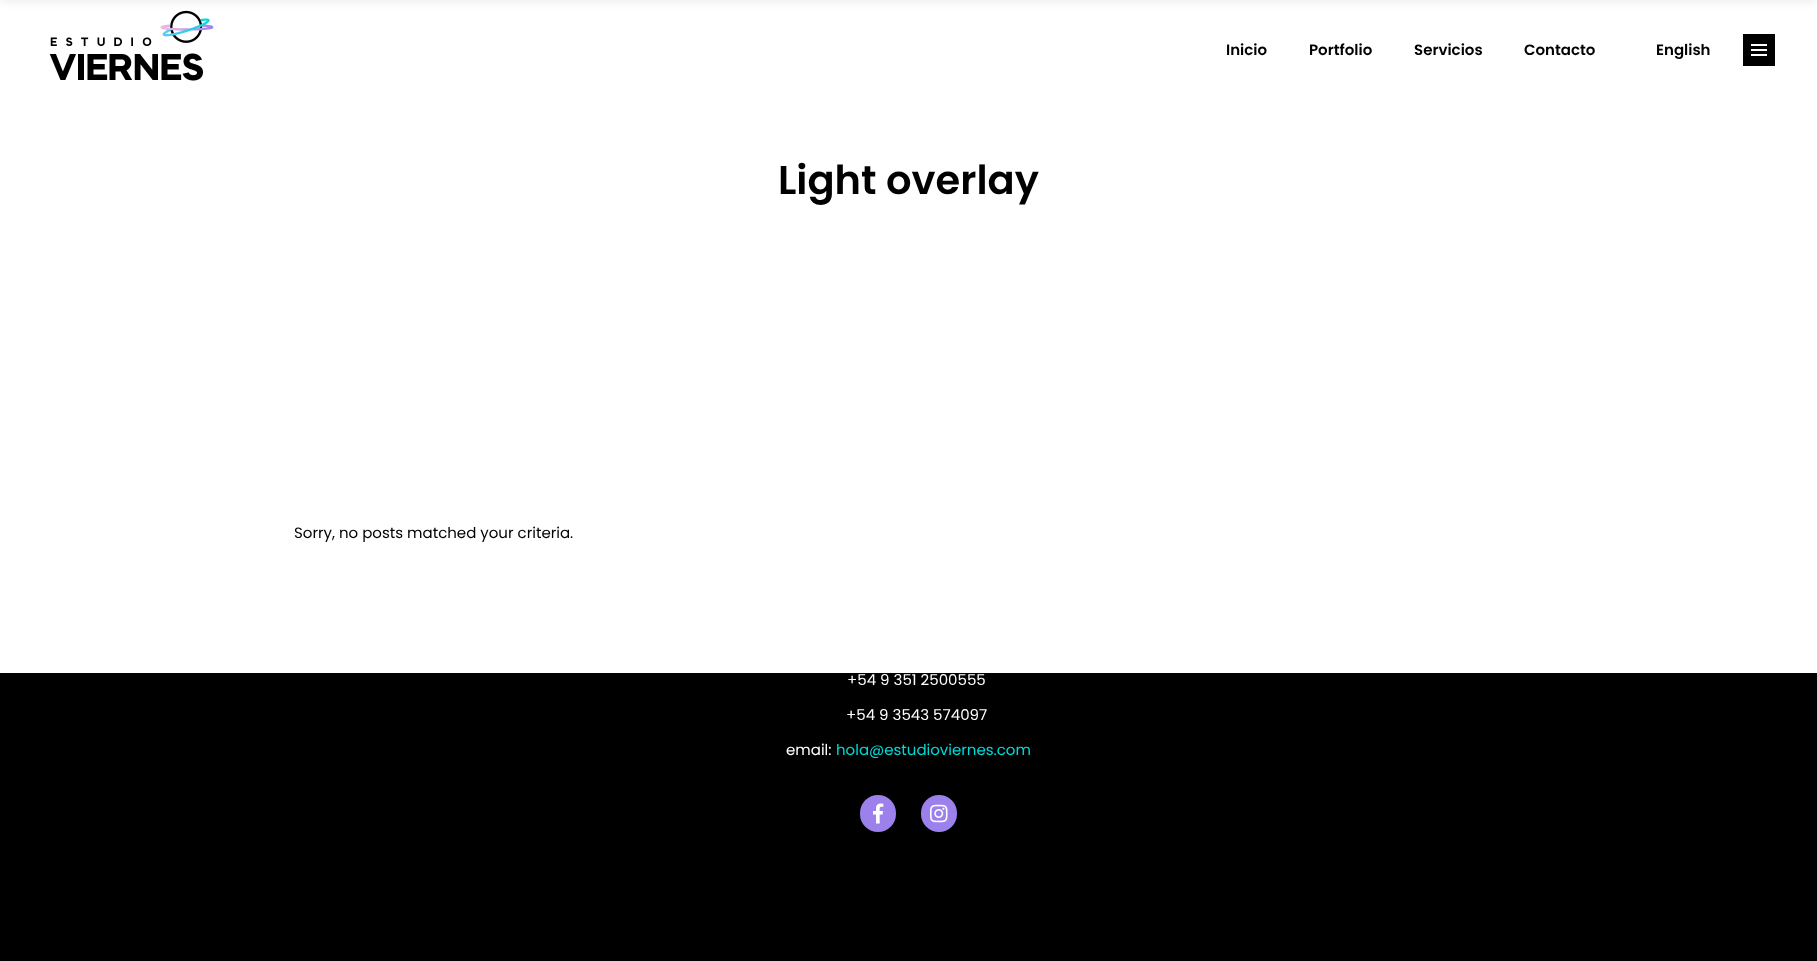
<svg xmlns="http://www.w3.org/2000/svg" width="1817" height="961" viewBox="0 0 1817 961">
  <defs>
    <filter id="blur1" x="-50%" y="-200%" width="200%" height="500%"><feGaussianBlur stdDeviation="4"/></filter>
  </defs>
  <rect width="100%" height="100%" fill="#000000"/>
  <rect x="0" y="0" width="1817" height="673" fill="#ffffff"/>
  <image x="49" y="10" width="165" height="71" href="img1.png"/>
  <rect x="0" y="-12" width="1817" height="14" fill="#000000" fill-opacity="0.07" filter="url(#blur1)"/>
  <text x="1226" y="55" font-family="Poppins" font-size="15" font-weight="600" fill="#000000">Inicio</text>
  <text x="1309" y="55" font-family="Poppins" font-size="15" font-weight="600" fill="#000000">Portfolio</text>
  <text x="1414" y="55" font-family="Poppins" font-size="15" font-weight="600" fill="#000000">Servicios</text>
  <text x="1524" y="55" font-family="Poppins" font-size="15" font-weight="600" fill="#000000">Contacto</text>
  <text x="1656" y="55" font-family="Poppins" font-size="15" font-weight="600" fill="#000000">English</text>
  <rect x="1743" y="34" width="32" height="32" fill="#000000"/>
  <rect x="1751" y="44" width="16" height="2" fill="#ffffff"/>
  <rect x="1751" y="49" width="16" height="2" fill="#ffffff"/>
  <rect x="1751" y="54" width="16" height="2" fill="#ffffff"/>
  <text x="778" y="194" font-family="Poppins" font-size="40" font-weight="600" fill="#000000">Light overlay</text>
  <text x="294" y="538" font-family="Poppins" font-size="15" fill="#000000">Sorry, no posts matched your criteria.</text>
  <text x="847" y="685" font-family="Poppins" font-size="15" fill="#ffffff">+54 9 351 2500555</text>
  <text x="846" y="720" font-family="Poppins" font-size="15" fill="#ffffff">+54 9 3543 574097</text>
  <text x="786" y="755" font-family="Poppins" font-size="15" fill="#ffffff">email:</text>
  <text x="836" y="755" font-family="Poppins" font-size="15" fill="#00d9d8">hola@estudioviernes.com</text>
  <rect x="860" y="795" width="36" height="37" rx="18" fill="#9c81ed"/>
  <image x="873" y="803" width="11" height="21" href="img2.png"/>
  <rect x="921" y="795" width="36" height="37" rx="18" fill="#9c81ed"/>
  <image x="930" y="804" width="18" height="19" href="img3.png"/>
</svg>
